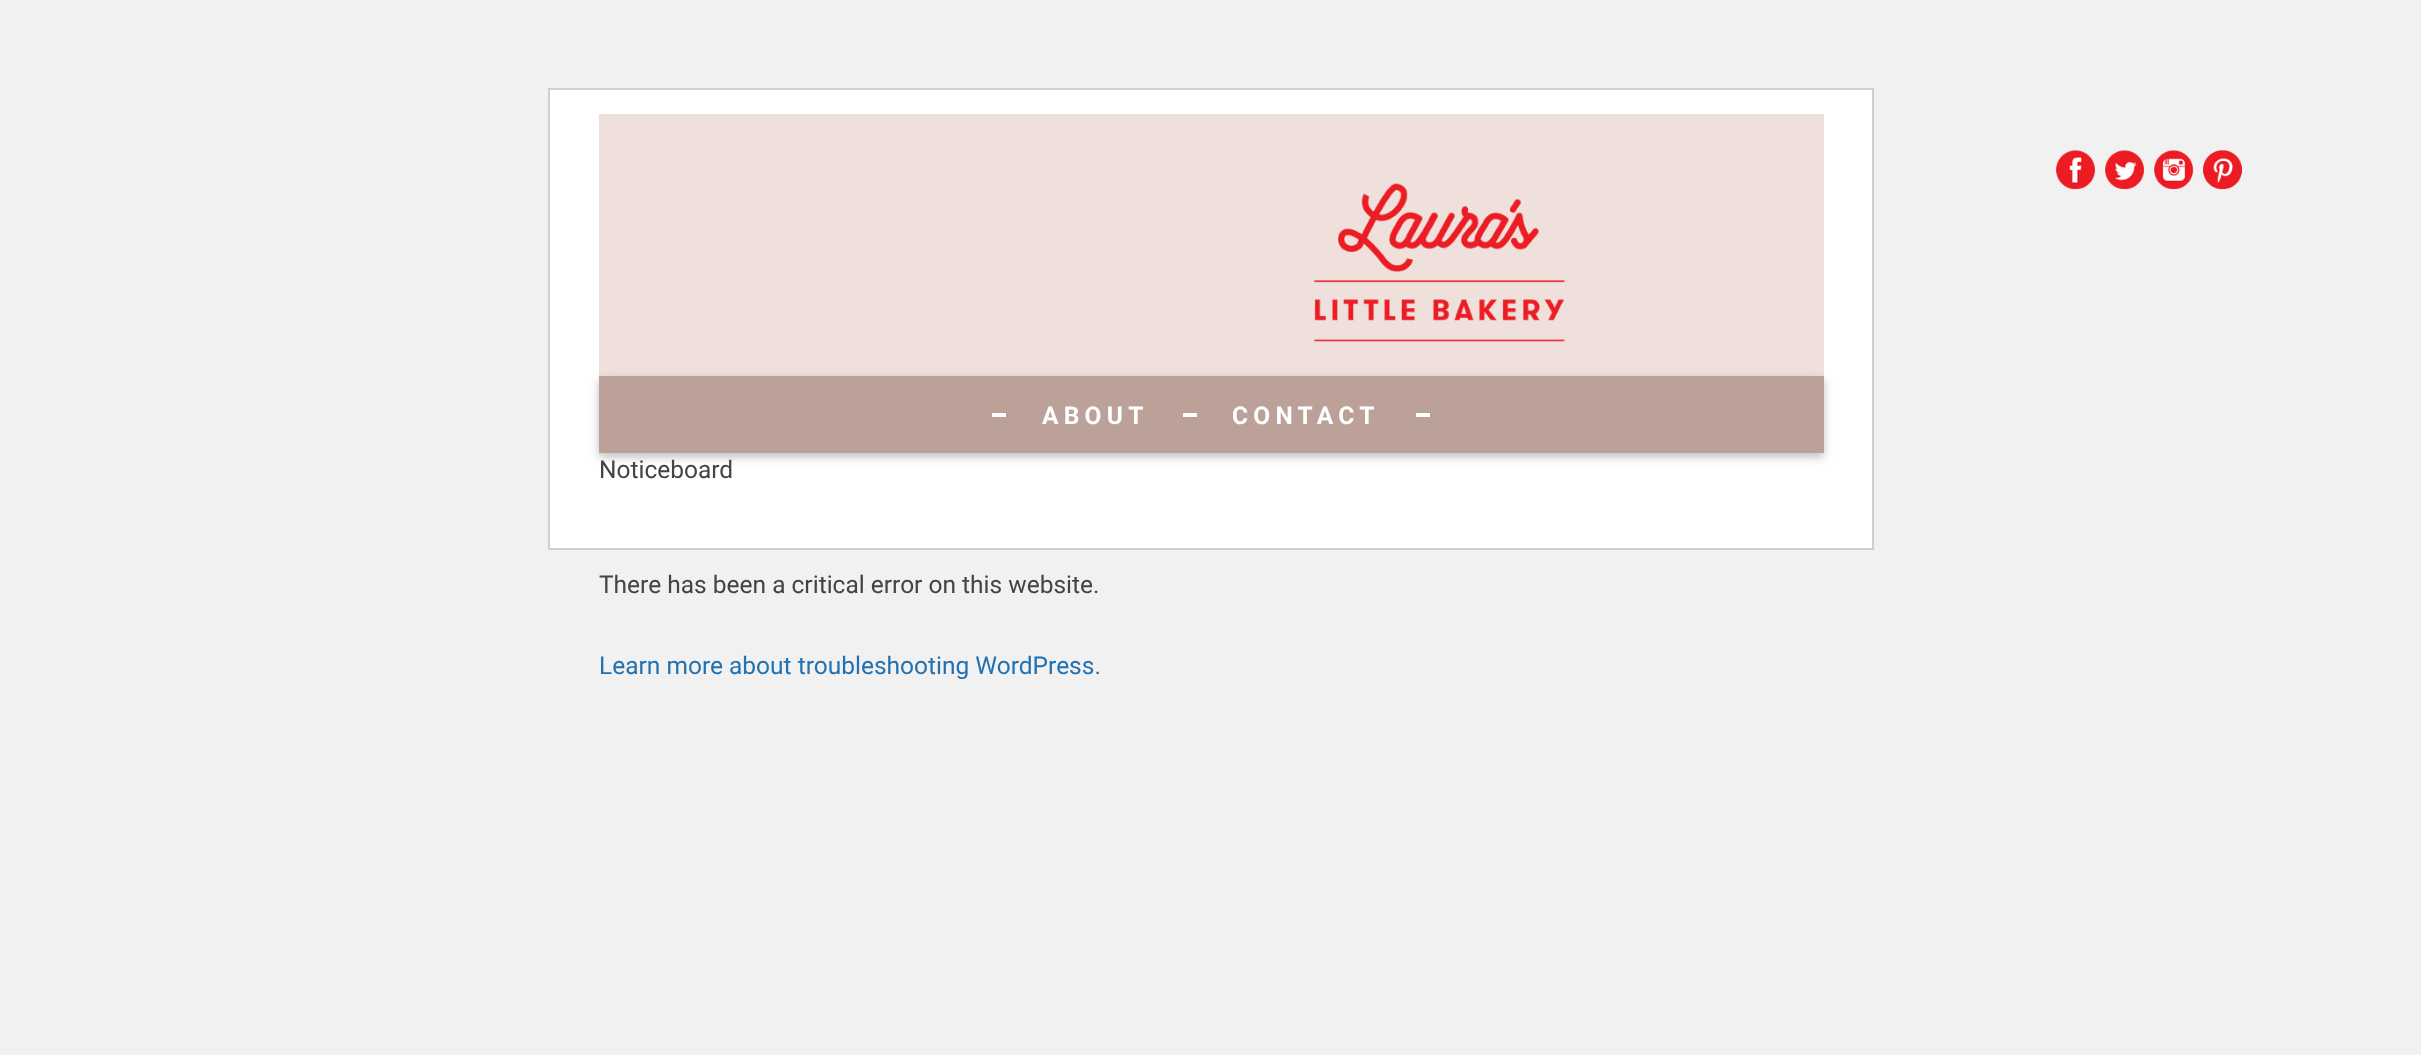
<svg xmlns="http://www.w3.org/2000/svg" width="2421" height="1055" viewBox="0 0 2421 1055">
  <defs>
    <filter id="blur1" x="-50%" y="-200%" width="200%" height="500%"><feGaussianBlur stdDeviation="5"/></filter>
  </defs>
  <rect width="100%" height="100%" fill="#f1f1f1"/>
  <rect x="549" y="89" width="1324" height="460" fill="#ffffff" stroke="#ccd0d4" stroke-width="2"/>
  <rect x="599" y="114" width="1225" height="262" fill="#efe0dc"/>
  <image x="2056" y="150" width="39" height="40" href="img1.png"/>
  <image x="2105" y="150" width="39" height="40" href="img2.png"/>
  <image x="2154" y="150" width="39" height="40" href="img3.png"/>
  <image x="2203" y="150" width="39" height="40" href="img4.png"/>
  <image x="1314" y="183" width="251" height="159" href="img5.png"/>
  <rect x="599" y="380" width="1225" height="77" fill="#000000" fill-opacity="0.25" filter="url(#blur1)"/>
  <rect x="599" y="376" width="1225" height="77" fill="#bca199"/>
  <rect x="992" y="413" width="438" height="4" fill="#ffffff"/>
  <rect x="1006" y="413" width="177" height="4" fill="#bca199"/>
  <text x="1042" y="424" font-family="Roboto" font-size="24.5" font-weight="bold" letter-spacing="5.25" fill="#ffffff">ABOUT</text>
  <rect x="1197" y="413" width="219" height="4" fill="#bca199"/>
  <text x="1232" y="424" font-family="Roboto" font-size="24.5" font-weight="bold" letter-spacing="5.25" fill="#ffffff">CONTACT</text>
  <text x="599" y="478" font-family="Roboto" font-size="24.5" fill="#444444">Noticeboard</text>
  <text x="599" y="593" font-family="Roboto" font-size="24.5" fill="#444444">There has been a critical error on this website.</text>
  <text x="599" y="674" font-family="Roboto" font-size="24.5" fill="#2271b1">Learn more about troubleshooting WordPress.</text>
</svg>
